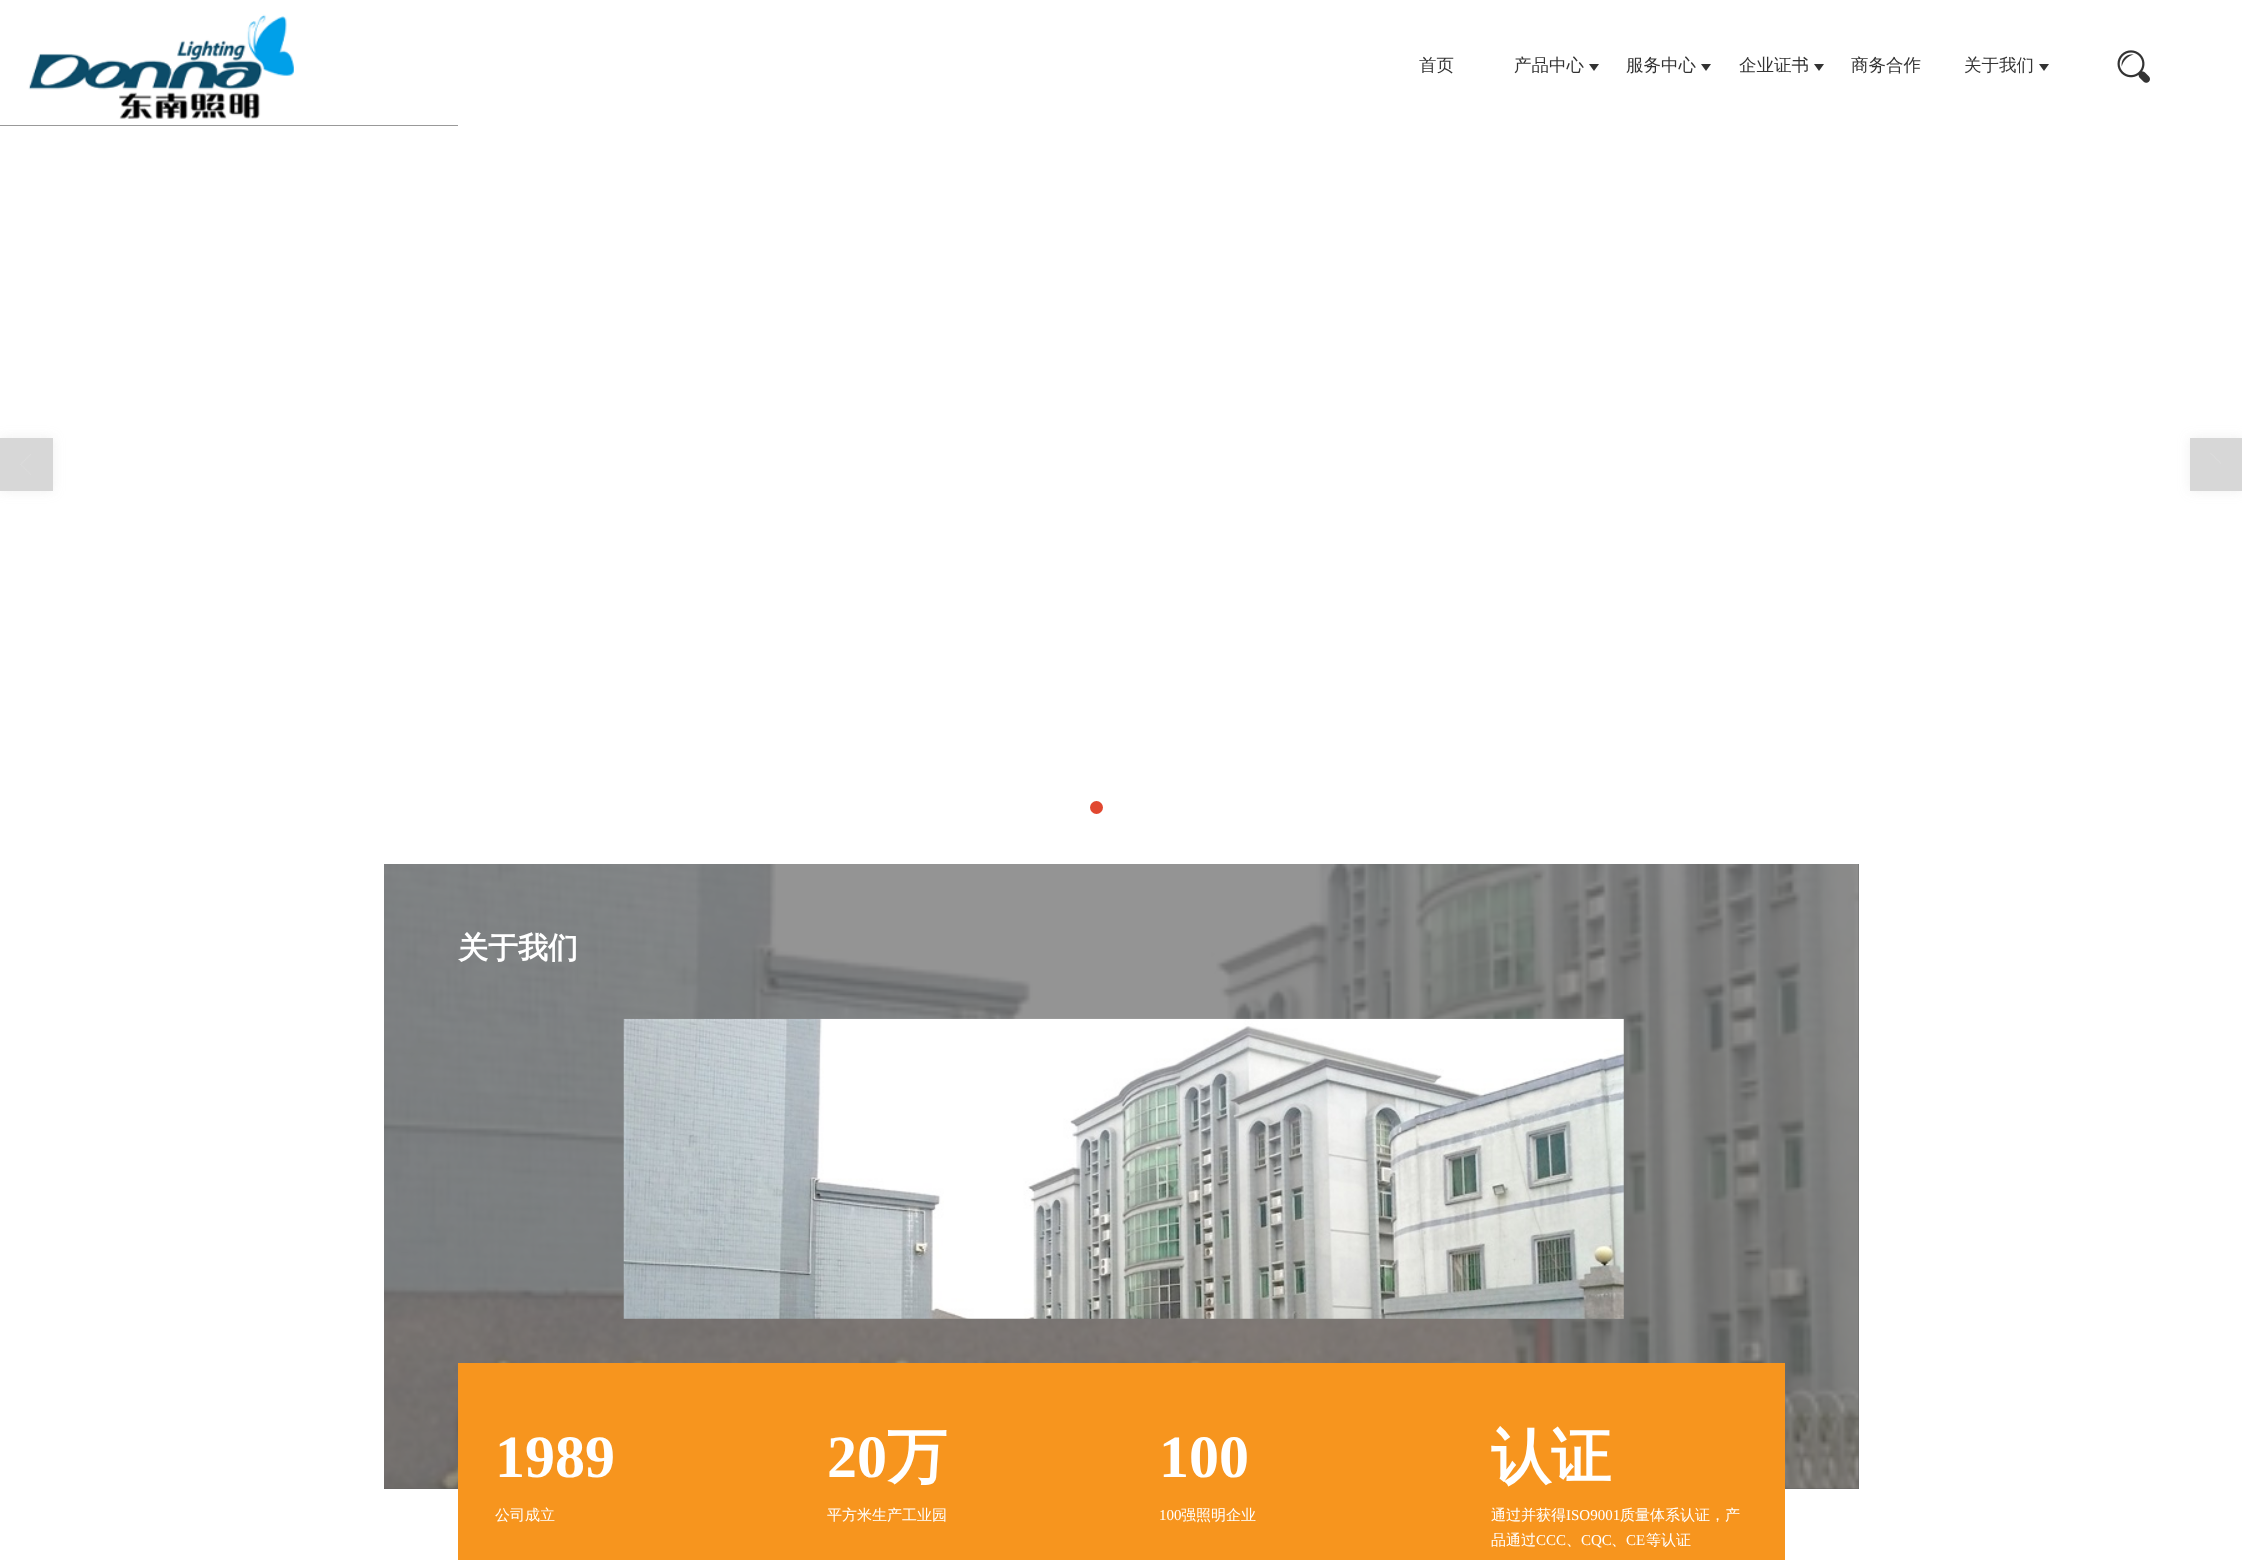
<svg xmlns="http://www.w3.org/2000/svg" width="2242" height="1560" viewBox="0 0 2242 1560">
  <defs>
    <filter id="blur1" x="-50%" y="-200%" width="200%" height="500%"><feGaussianBlur stdDeviation="6"/></filter>
  </defs>
  <rect width="100%" height="100%" fill="#ffffff"/>
  <image x="28" y="14" width="266" height="105" href="img1.png"/>
  <text x="1419" y="71" font-family="WenQuanYi Zen Hei" font-size="17.5" font-weight="500" fill="#333333">首页</text>
  <text x="1514" y="71" font-family="WenQuanYi Zen Hei" font-size="17.5" font-weight="500" fill="#333333">产品中心</text>
  <path d="M1589 64H1599L1594 71Z" fill="#333333"/>
  <text x="1626" y="71" font-family="WenQuanYi Zen Hei" font-size="17.5" font-weight="500" fill="#333333">服务中心</text>
  <path d="M1701 64H1711L1706 71Z" fill="#333333"/>
  <text x="1739" y="71" font-family="WenQuanYi Zen Hei" font-size="17.5" font-weight="500" fill="#333333">企业证书</text>
  <path d="M1814 64H1824L1819 71Z" fill="#333333"/>
  <text x="1851" y="71" font-family="WenQuanYi Zen Hei" font-size="17.5" font-weight="500" fill="#333333">商务合作</text>
  <text x="1964" y="71" font-family="WenQuanYi Zen Hei" font-size="17.5" font-weight="500" fill="#333333">关于我们</text>
  <path d="M2039 64H2049L2044 71Z" fill="#333333"/>
  <image x="2117" y="50" width="33" height="33" href="img2.png"/>
  <rect x="0" y="125" width="458" height="1" fill="#999999"/>
  <rect x="0" y="438" width="53" height="53" fill="#cccccc" fill-opacity="0.3" filter="url(#blur1)"/>
  <rect x="0" y="438" width="53" height="53" fill="#d7d7d7"/>
  <image x="20" y="454" width="11" height="21" href="img3.png"/>
  <rect x="2190" y="438" width="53" height="53" fill="#cccccc" fill-opacity="0.3" filter="url(#blur1)"/>
  <rect x="2190" y="438" width="52" height="53" fill="#d7d7d7"/>
  <image x="2210" y="453" width="11" height="11" href="img4.png"/>
  <circle cx="1096.5" cy="807.5" r="6.5" fill="#e1472f"/>
  <rect x="384" y="864" width="1475" height="625" fill="#666666"/>
  <image x="384" y="864" width="1475" height="625" href="img5.png"/>
  <text x="458" y="958" font-family="WenQuanYi Zen Hei" font-size="30" font-weight="bold" fill="#ffffff">关于我们</text>
  <image x="623" y="1018" width="1001" height="301" href="img6.png"/>
  <rect x="458" y="1363" width="1327" height="197" fill="#f7951e"/>
  <text x="495" y="1477" font-family="Liberation Serif" font-size="60" font-weight="bold" fill="#ffffff">1989</text>
  <text x="495" y="1520" font-family="WenQuanYi Zen Hei" font-size="15" font-weight="500" fill="#ffffff">公司成立</text>
  <text x="827" y="1477" font-family="Liberation Serif" font-size="60" font-weight="bold" fill="#ffffff">20</text>
  <text x="887" y="1477" font-family="WenQuanYi Zen Hei" font-size="60" font-weight="bold" fill="#ffffff">万</text>
  <text x="827" y="1520" font-family="WenQuanYi Zen Hei" font-size="15" font-weight="500" fill="#ffffff">平方米生产工业园</text>
  <text x="1159" y="1477" font-family="Liberation Serif" font-size="60" font-weight="bold" fill="#ffffff">100</text>
  <text x="1159" y="1520" font-family="Liberation Serif" font-size="15" fill="#ffffff">100</text>
  <text x="1181" y="1520" font-family="WenQuanYi Zen Hei" font-size="15" font-weight="500" fill="#ffffff">强照明企业</text>
  <text x="1491" y="1477" font-family="WenQuanYi Zen Hei" font-size="60" font-weight="bold" fill="#ffffff">认证</text>
  <text x="1491" y="1520" font-family="WenQuanYi Zen Hei" font-size="15" font-weight="500" fill="#ffffff">通过并获得</text>
  <text x="1566" y="1520" font-family="Liberation Serif" font-size="15" fill="#ffffff">ISO9001</text>
  <text x="1620" y="1520" font-family="WenQuanYi Zen Hei" font-size="15" font-weight="500" fill="#ffffff">质量体系认证，产</text>
  <text x="1491" y="1545" font-family="WenQuanYi Zen Hei" font-size="15" font-weight="500" fill="#ffffff">品通过</text>
  <text x="1536" y="1545" font-family="Liberation Serif" font-size="15" fill="#ffffff">CCC</text>
  <text x="1566" y="1545" font-family="WenQuanYi Zen Hei" font-size="15" font-weight="500" fill="#ffffff">、</text>
  <text x="1581" y="1545" font-family="Liberation Serif" font-size="15" fill="#ffffff">CQC</text>
  <text x="1611" y="1545" font-family="WenQuanYi Zen Hei" font-size="15" font-weight="500" fill="#ffffff">、</text>
  <text x="1626" y="1545" font-family="Liberation Serif" font-size="15" fill="#ffffff">CE</text>
  <text x="1646" y="1545" font-family="WenQuanYi Zen Hei" font-size="15" font-weight="500" fill="#ffffff">等认证</text>
</svg>
